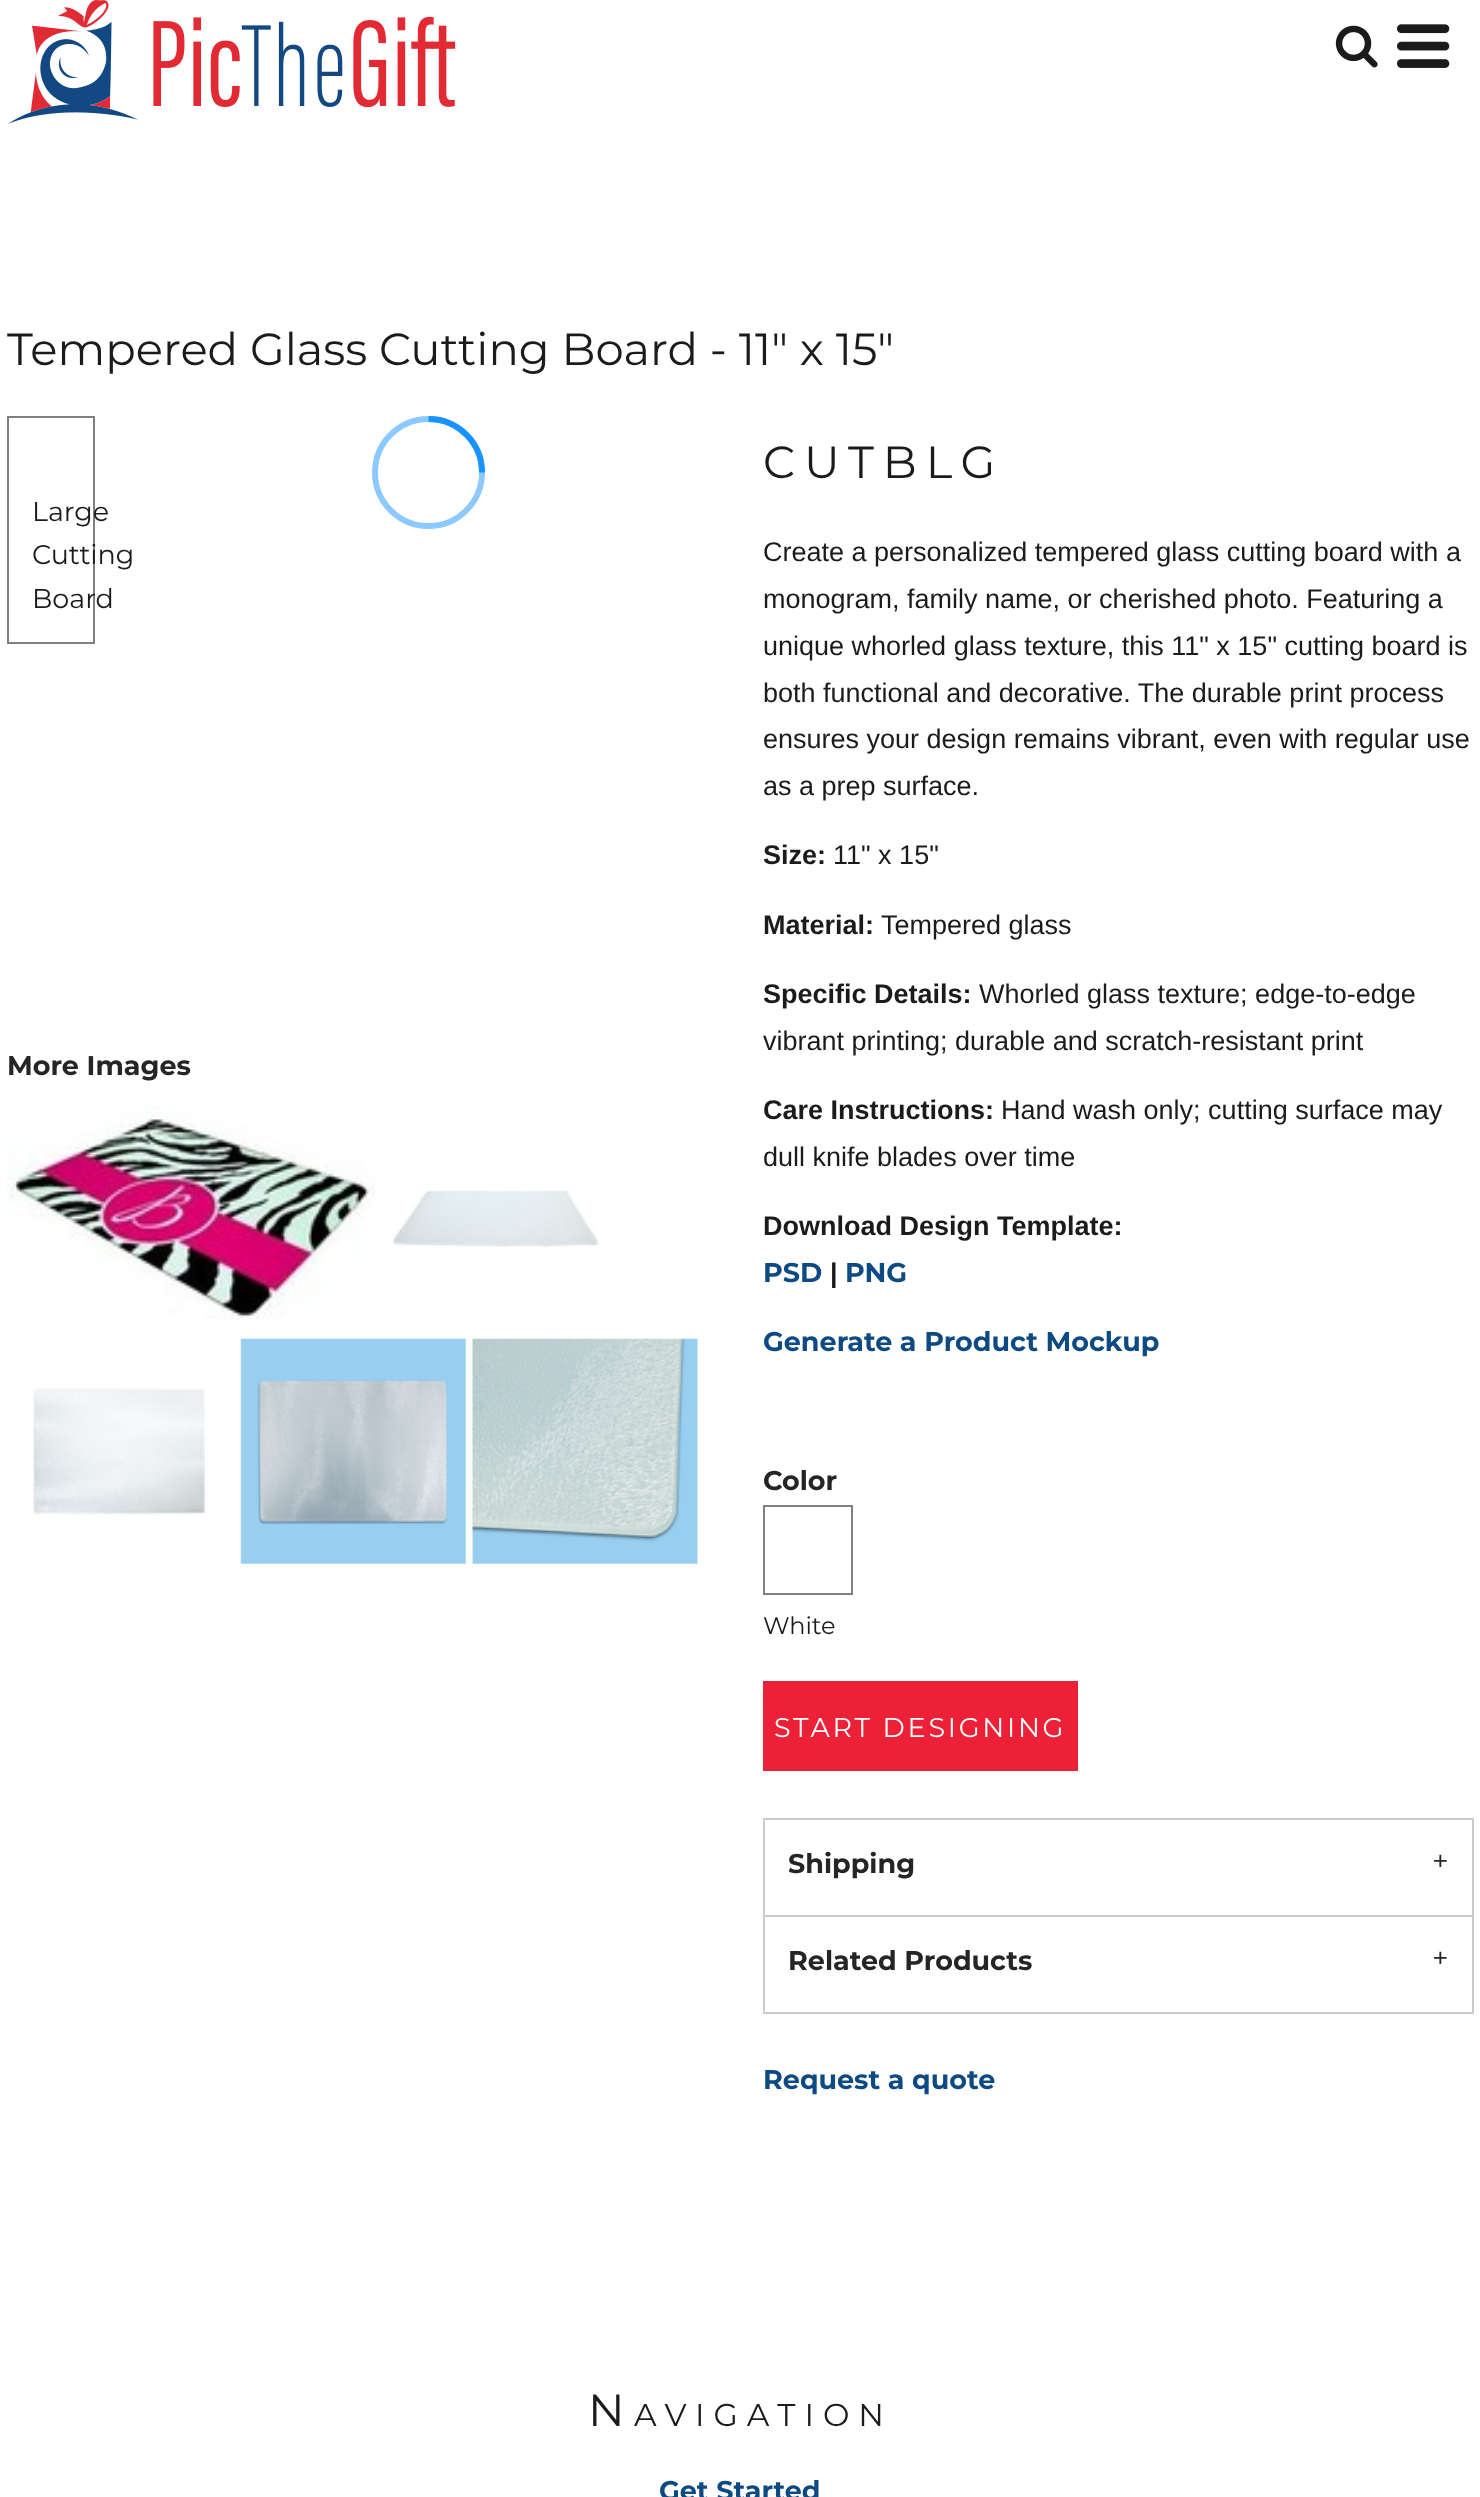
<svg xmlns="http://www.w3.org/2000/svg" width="1480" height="2497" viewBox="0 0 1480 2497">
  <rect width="100%" height="100%" fill="#ffffff"/>
  <image x="8" y="0" width="448" height="124" href="img1.png"/>
  <image x="1335" y="25" width="43" height="43" href="img2.png"/>
  <image x="1397" y="24" width="53" height="44" href="img3.png"/>
  <text x="7" y="365" font-family="Montserrat" font-size="45" fill="#1c1b1b">Tempered Glass Cutting Board - 11" x 15"</text>
  <circle cx="428.5" cy="472.5" r="53.5" fill="none" stroke="#8cc9ff" stroke-width="5.9"/>
  <path d="M482 472.5C482 443 458 419 428.5 419" fill="none" stroke="#1993ff" stroke-width="5.9"/>
  <rect x="8" y="417" width="86" height="226" fill="none" stroke="#808080" stroke-width="2"/>
  <text x="32" y="521" font-family="Montserrat" font-size="27" fill="#1c1b1b">Large</text>
  <text x="32" y="564" font-family="Montserrat" font-size="27" fill="#1c1b1b">Cutting</text>
  <text x="32" y="608" font-family="Montserrat" font-size="27" fill="#1c1b1b">Board</text>
  <text x="7" y="1075" font-family="Montserrat" font-size="27" font-weight="bold" fill="#252525">More Images</text>
  <image x="7" y="1105" width="368" height="216" href="img4.png"/>
  <image x="391" y="1190" width="207" height="57" href="img5.png"/>
  <image x="31" y="1387" width="178" height="129" href="img6.png"/>
  <image x="240" y="1338" width="226" height="226" href="img7.png"/>
  <image x="472" y="1338" width="226" height="226" href="img8.png"/>
  <text x="763" y="478" font-family="Montserrat" font-size="45" letter-spacing="9" fill="#1c1b1b">CUTBLG</text>
  <text x="763" y="561" font-family="Liberation Sans" font-size="27" fill="#1c1b1b">Create a personalized tempered glass cutting board with a</text>
  <text x="763" y="608" font-family="Liberation Sans" font-size="27" fill="#1c1b1b">monogram, family name, or cherished photo. Featuring a</text>
  <text x="763" y="655" font-family="Liberation Sans" font-size="27" fill="#1c1b1b">unique whorled glass texture, this 11" x 15" cutting board is</text>
  <text x="763" y="702" font-family="Liberation Sans" font-size="27" fill="#1c1b1b">both functional and decorative. The durable print process</text>
  <text x="763" y="748" font-family="Liberation Sans" font-size="27" fill="#1c1b1b">ensures your design remains vibrant, even with regular use</text>
  <text x="763" y="795" font-family="Liberation Sans" font-size="27" fill="#1c1b1b">as a prep surface.</text>
  <text x="763" y="864" font-family="Liberation Sans" font-size="27" font-weight="bold" fill="#1c1b1b">Size:</text>
  <text x="833" y="864" font-family="Liberation Sans" font-size="27" fill="#1c1b1b">11" x 15"</text>
  <text x="763" y="934" font-family="Liberation Sans" font-size="27" font-weight="bold" fill="#1c1b1b">Material:</text>
  <text x="881" y="934" font-family="Liberation Sans" font-size="27" fill="#1c1b1b">Tempered glass</text>
  <text x="763" y="1003" font-family="Liberation Sans" font-size="27" font-weight="bold" fill="#1c1b1b">Specific Details:</text>
  <text x="979" y="1003" font-family="Liberation Sans" font-size="27" fill="#1c1b1b">Whorled glass texture; edge-to-edge</text>
  <text x="763" y="1050" font-family="Liberation Sans" font-size="27" fill="#1c1b1b">vibrant printing; durable and scratch-resistant print</text>
  <text x="763" y="1119" font-family="Liberation Sans" font-size="27" font-weight="bold" fill="#1c1b1b">Care Instructions:</text>
  <text x="1001" y="1119" font-family="Liberation Sans" font-size="27" fill="#1c1b1b">Hand wash only; cutting surface may</text>
  <text x="763" y="1166" font-family="Liberation Sans" font-size="27" fill="#1c1b1b">dull knife blades over time</text>
  <text x="763" y="1235" font-family="Liberation Sans" font-size="27" font-weight="bold" fill="#1c1b1b">Download Design Template:</text>
  <text x="763" y="1282" font-family="Montserrat" font-size="27" font-weight="bold" fill="#0d4a83">PSD</text>
  <text x="830" y="1282" font-family="Liberation Sans" font-size="27" font-weight="bold" fill="#1c1b1b">|</text>
  <text x="845" y="1282" font-family="Montserrat" font-size="27" font-weight="bold" fill="#0d4a83">PNG</text>
  <text x="763" y="1351" font-family="Montserrat" font-size="27" font-weight="bold" fill="#0d4a83">Generate a Product Mockup</text>
  <text x="763" y="1490" font-family="Montserrat" font-size="27" font-weight="bold" fill="#252525">Color</text>
  <rect x="764" y="1506" width="88" height="88" fill="none" stroke="#808080" stroke-width="2"/>
  <text x="763" y="1634" font-family="Montserrat" font-size="24" fill="#1c1b1b">White</text>
  <rect x="763" y="1681" width="315" height="90" fill="#ec2036"/>
  <text x="774" y="1737" font-family="Montserrat" font-size="27" letter-spacing="2.75" fill="#ffffff">START DESIGNING</text>
  <rect x="764" y="1819" width="709" height="194" fill="none" stroke="#cccccc" stroke-width="2"/>
  <text x="788" y="1873" font-family="Montserrat" font-size="27" font-weight="bold" fill="#252525">Shipping</text>
  <text x="1432" y="1871" font-family="Montserrat" font-size="29" fill="#252525">+</text>
  <rect x="765" y="1915" width="707" height="2" fill="#cccccc"/>
  <text x="788" y="1970" font-family="Montserrat" font-size="27" font-weight="bold" fill="#252525">Related Products</text>
  <text x="1432" y="1968" font-family="Montserrat" font-size="29" fill="#252525">+</text>
  <text x="763" y="2089" font-family="Montserrat" font-size="27" font-weight="bold" fill="#0d4a83">Request a quote</text>
  <text x="588" y="2426" font-family="Montserrat" font-size="45" letter-spacing="9" fill="#1c1b1b">N</text>
  <text x="634" y="2426" font-family="Montserrat" font-size="31.5" letter-spacing="9" fill="#1c1b1b">AVIGATION</text>
  <text x="659" y="2500" font-family="Montserrat" font-size="27" font-weight="bold" fill="#0d4a83">Get Started</text>
</svg>
